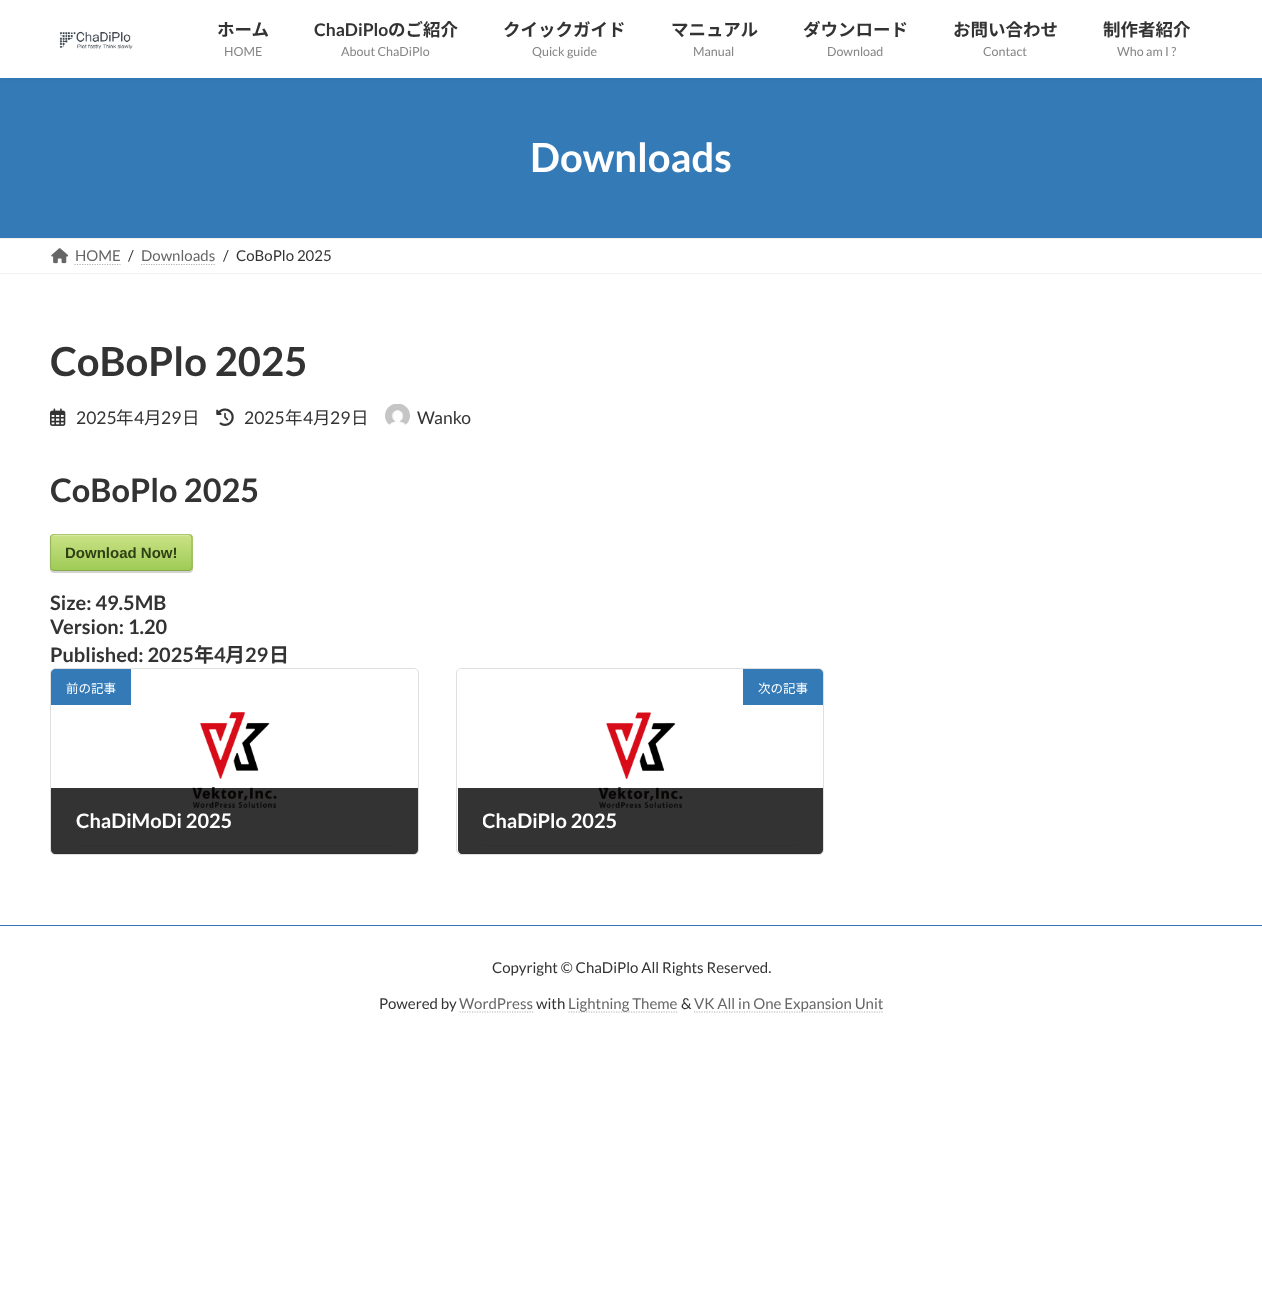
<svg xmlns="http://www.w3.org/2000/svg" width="1262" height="1310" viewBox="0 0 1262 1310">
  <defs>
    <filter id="blur1" x="-50%" y="-200%" width="200%" height="500%"><feGaussianBlur stdDeviation="2"/></filter>
    <filter id="blur2" x="-50%" y="-200%" width="200%" height="500%"><feGaussianBlur stdDeviation="0.5"/></filter>
    <clipPath id="clip1"><rect x="50" y="534" width="143" height="37" rx="4"/></clipPath>
    <linearGradient id="g1" gradientUnits="userSpaceOnUse" x1="51" y1="500" x2="51" y2="535"><stop offset="0" stop-color="#cae285"/><stop offset="1" stop-color="#9fcb57"/></linearGradient>
    <linearGradient id="g2" gradientUnits="userSpaceOnUse" x1="51" y1="535" x2="51" y2="570"><stop offset="0" stop-color="#cae285"/><stop offset="1" stop-color="#9fcb57"/></linearGradient>
    <linearGradient id="g3" gradientUnits="userSpaceOnUse" x1="51" y1="570" x2="51" y2="605"><stop offset="0" stop-color="#cae285"/><stop offset="1" stop-color="#9fcb57"/></linearGradient>
    <clipPath id="clip2"><rect x="51" y="669" width="367" height="185" rx="4"/></clipPath>
    <clipPath id="clip3"><rect x="458" y="669" width="365" height="185" rx="4"/></clipPath>
    <clipPath id="clip4"><rect x="483" y="806" width="315" height="39"/></clipPath>
  </defs>
  <rect width="100%" height="100%" fill="#ffffff"/>
  <rect x="0" y="78" width="1262" height="160" fill="#337ab7"/>
  <rect x="0" y="1" width="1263" height="78" fill="#000000" fill-opacity="0.05" filter="url(#blur1)"/>
  <rect x="0" y="0" width="1262" height="78" fill="#ffffff"/>
  <image x="59" y="31" width="74" height="19" href="img1.png"/>
  <text x="217" y="36" font-family="Noto Sans JP" font-size="17.5" font-weight="bold" fill="#333333">ホーム</text>
  <text x="224" y="56" font-family="Lato" font-size="12.5" fill="#858585">HOME</text>
  <text x="314" y="36" font-family="Lato" font-size="17.5" font-weight="bold" fill="#333333">ChaDiPlo</text>
  <text x="388" y="36" font-family="Noto Sans JP" font-size="17.5" font-weight="bold" fill="#333333">のご紹介</text>
  <text x="341" y="56" font-family="Lato" font-size="12.5" fill="#858585">About ChaDiPlo</text>
  <text x="503" y="36" font-family="Noto Sans JP" font-size="17.5" font-weight="bold" fill="#333333">クイックガイド</text>
  <text x="532" y="56" font-family="Lato" font-size="12.5" fill="#858585">Quick guide</text>
  <text x="671" y="36" font-family="Noto Sans JP" font-size="17.5" font-weight="bold" fill="#333333">マニュアル</text>
  <text x="693" y="56" font-family="Lato" font-size="12.5" fill="#858585">Manual</text>
  <text x="803" y="36" font-family="Noto Sans JP" font-size="17.5" font-weight="bold" fill="#333333">ダウンロード</text>
  <text x="827" y="56" font-family="Lato" font-size="12.5" fill="#858585">Download</text>
  <text x="953" y="36" font-family="Noto Sans JP" font-size="17.5" font-weight="bold" fill="#333333">お問い合わせ</text>
  <text x="983" y="56" font-family="Lato" font-size="12.5" fill="#858585">Contact</text>
  <text x="1103" y="36" font-family="Noto Sans JP" font-size="17.5" font-weight="bold" fill="#333333">制作者紹介</text>
  <text x="1117" y="56" font-family="Lato" font-size="12.5" fill="#858585">Who am I ?</text>
  <text x="530" y="172" font-family="Lato" font-size="40" font-weight="bold" fill="#ffffff">Downloads</text>
  <rect x="0" y="238" width="1262" height="1" fill="#f0f0f0"/>
  <rect x="0" y="273" width="1262" height="1" fill="#f0f0f0"/>
  <image x="51" y="248" width="18" height="16" href="img2.png"/>
  <text x="75" y="261" font-family="Lato" font-size="15" fill="#666666">HOME</text>
  <path d="M74.5 264.5H120.5" fill="none" stroke="#b3b3b3" stroke-width="1.2" stroke-dasharray="1.25 1.25"/>
  <text x="128" y="261" font-family="Lato" font-size="15" fill="#333333">/</text>
  <text x="141" y="261" font-family="Lato" font-size="15" fill="#666666">Downloads</text>
  <path d="M141 264.5H215.5" fill="none" stroke="#b3b3b3" stroke-width="1.2" stroke-dasharray="1.25 1.25"/>
  <text x="223" y="261" font-family="Lato" font-size="15" fill="#333333">/</text>
  <text x="236" y="261" font-family="Lato" font-size="15" fill="#333333">CoBoPlo 2025</text>
  <text x="50" y="376" font-family="Lato" font-size="40" font-weight="bold" fill="#333333">CoBoPlo 2025</text>
  <image x="50" y="408" width="16" height="18" href="img3.png"/>
  <text x="76" y="424" font-family="Lato" font-size="17.5" fill="#333333">2025</text>
  <text x="116" y="424" font-family="Noto Sans JP" font-size="17.5" fill="#333333">年</text>
  <text x="134" y="424" font-family="Lato" font-size="17.5" fill="#333333">4</text>
  <text x="144" y="424" font-family="Noto Sans JP" font-size="17.5" fill="#333333">月</text>
  <text x="161" y="424" font-family="Lato" font-size="17.5" fill="#333333">29</text>
  <text x="182" y="424" font-family="Noto Sans JP" font-size="17.5" fill="#333333">日</text>
  <image x="216" y="408" width="18" height="18" href="img4.png"/>
  <text x="244" y="424" font-family="Lato" font-size="17.5" fill="#333333">2025</text>
  <text x="285" y="424" font-family="Noto Sans JP" font-size="17.5" fill="#333333">年</text>
  <text x="303" y="424" font-family="Lato" font-size="17.5" fill="#333333">4</text>
  <text x="313" y="424" font-family="Noto Sans JP" font-size="17.5" fill="#333333">月</text>
  <text x="330" y="424" font-family="Lato" font-size="17.5" fill="#333333">29</text>
  <text x="351" y="424" font-family="Noto Sans JP" font-size="17.5" fill="#333333">日</text>
  <image x="385" y="404" width="25" height="21" href="img5.png"/>
  <text x="417" y="424" font-family="Lato" font-size="17.5" fill="#333333">Wanko</text>
  <text x="50" y="502" font-family="Lato" font-size="32.5" font-weight="bold" fill="#333333">CoBoPlo 2025</text>
  <rect x="50" y="535" width="143" height="38" rx="4" fill="#d3d3d3" filter="url(#blur2)"/>
  <g clip-path="url(#clip1)">
    <rect x="50" y="534" width="143" height="1" fill="url(#g1)"/>
    <rect x="50" y="535" width="143" height="35" fill="url(#g2)"/>
    <rect x="50" y="570" width="143" height="1" fill="url(#g3)"/>
  </g>
  <path d="M54 536H189C190 536 191 537 191 539V538C191 536 190 535 188 535H54C52 535 51 536 51 538V539C51 537 52 536 54 536Z" fill="#d7e9a4"/>
  <path d="M51.5 535.5L54 534.5H189L191 535.5" fill="none" stroke="#adc671" stroke-width="1.2"/>
  <path d="M191 535.5C191.5 536 192 536.5 192 537.5V567.5C192 568.5 191.5 569 191 569.5" fill="none" stroke="#98b65b" stroke-width="1.2"/>
  <path d="M191 569.5L189 570.5H54L51.5 569.5" fill="none" stroke="#87aa4a" stroke-width="1.2"/>
  <path d="M51.5 569.5C51 569 50.5 568.5 50.5 567.5V537.5C50.5 536.5 51 536 51.5 535.5" fill="none" stroke="#98b65b" stroke-width="1.2"/>
  <text x="65" y="558" font-family="Liberation Sans" font-size="15" font-weight="bold" fill="#2f4014">Download Now!</text>
  <text x="50" y="610" font-family="Lato" font-size="20" font-weight="bold" fill="#333333">Size: 49.5MB</text>
  <text x="50" y="634" font-family="Lato" font-size="20" font-weight="bold" fill="#333333">Version: 1.20</text>
  <text x="50" y="662" font-family="Lato" font-size="20" font-weight="bold" fill="#333333">Published: 2025</text>
  <text x="194" y="662" font-family="Noto Sans JP" font-size="20" font-weight="bold" fill="#333333">年</text>
  <text x="214" y="662" font-family="Lato" font-size="20" font-weight="bold" fill="#333333">4</text>
  <text x="225" y="662" font-family="Noto Sans JP" font-size="20" font-weight="bold" fill="#333333">月</text>
  <text x="245" y="662" font-family="Lato" font-size="20" font-weight="bold" fill="#333333">29</text>
  <text x="269" y="662" font-family="Noto Sans JP" font-size="20" font-weight="bold" fill="#333333">日</text>
  <rect x="50.5" y="668.5" width="368" height="186" rx="4.5" fill="none" stroke="#dfdfdf"/>
  <image x="51" y="669" width="366" height="139" href="img6.png"/>
  <g clip-path="url(#clip2)">
    <rect x="51" y="853" width="367" height="1" fill="#e5e5e5"/>
  </g>
  <path d="M55 669H131V705H51V673C51 671 53 669 55 669Z" fill="#337ab7"/>
  <text x="66" y="693" font-family="Noto Sans JP" font-size="12.5" fill="#ffffff">前の記事</text>
  <path d="M51 788H418V850C418 852 416 854 414 854H55C53 854 51 852 51 850Z" fill="#000000" fill-opacity="0.8"/>
  <rect x="76" y="845" width="317" height="1" fill="#303030"/>
  <text x="76" y="828" font-family="Lato" font-size="20" font-weight="bold" fill="#ffffff">ChaDiMoDi 2025</text>
  <rect x="456.5" y="668.5" width="367" height="186" rx="4.5" fill="none" stroke="#dfdfdf"/>
  <image x="458" y="669" width="364" height="139" href="img7.png"/>
  <g clip-path="url(#clip3)">
    <rect x="458" y="853" width="365" height="1" fill="#e5e5e5"/>
  </g>
  <path d="M743 669H819C821 669 823 671 823 673V705H743Z" fill="#337ab7"/>
  <text x="758" y="693" font-family="Noto Sans JP" font-size="12.5" fill="#ffffff">次の記事</text>
  <path d="M458 788H823V850C823 852 821 854 819 854H462C460 854 458 852 458 850Z" fill="#000000" fill-opacity="0.8"/>
  <rect x="483" y="845" width="315" height="1" fill="#303030"/>
  <g clip-path="url(#clip4)">
    <text x="482" y="828" font-family="Lato" font-size="20" font-weight="bold" fill="#ffffff">ChaDiPlo 2025</text>
  </g>
  <rect x="0" y="925" width="1262" height="1" fill="#337ab7"/>
  <text x="492" y="973" font-family="Lato" font-size="15" fill="#333333">Copyright © ChaDiPlo All Rights Reserved.</text>
  <text x="379" y="1009" font-family="Lato" font-size="15" fill="#333333">Powered by</text>
  <text x="459" y="1009" font-family="Lato" font-size="15" fill="#666666">WordPress</text>
  <path d="M459.5 1012H533.5" fill="none" stroke="#b3b3b3" stroke-width="1.2" stroke-dasharray="1.25 1.25"/>
  <text x="536" y="1009" font-family="Lato" font-size="15" fill="#333333">with</text>
  <path d="M568.5 1012H678" fill="none" stroke="#b3b3b3" stroke-width="1.2" stroke-dasharray="1.25 1.25"/>
  <text x="568" y="1009" font-family="Lato" font-size="15" fill="#666666">Lightning Theme</text>
  <text x="681" y="1009" font-family="Lato" font-size="15" fill="#333333">&amp;</text>
  <path d="M694 1012H883.5" fill="none" stroke="#b3b3b3" stroke-width="1.2" stroke-dasharray="1.25 1.25"/>
  <text x="694" y="1009" font-family="Lato" font-size="15" fill="#666666">VK All in One Expansion Unit</text>
</svg>
